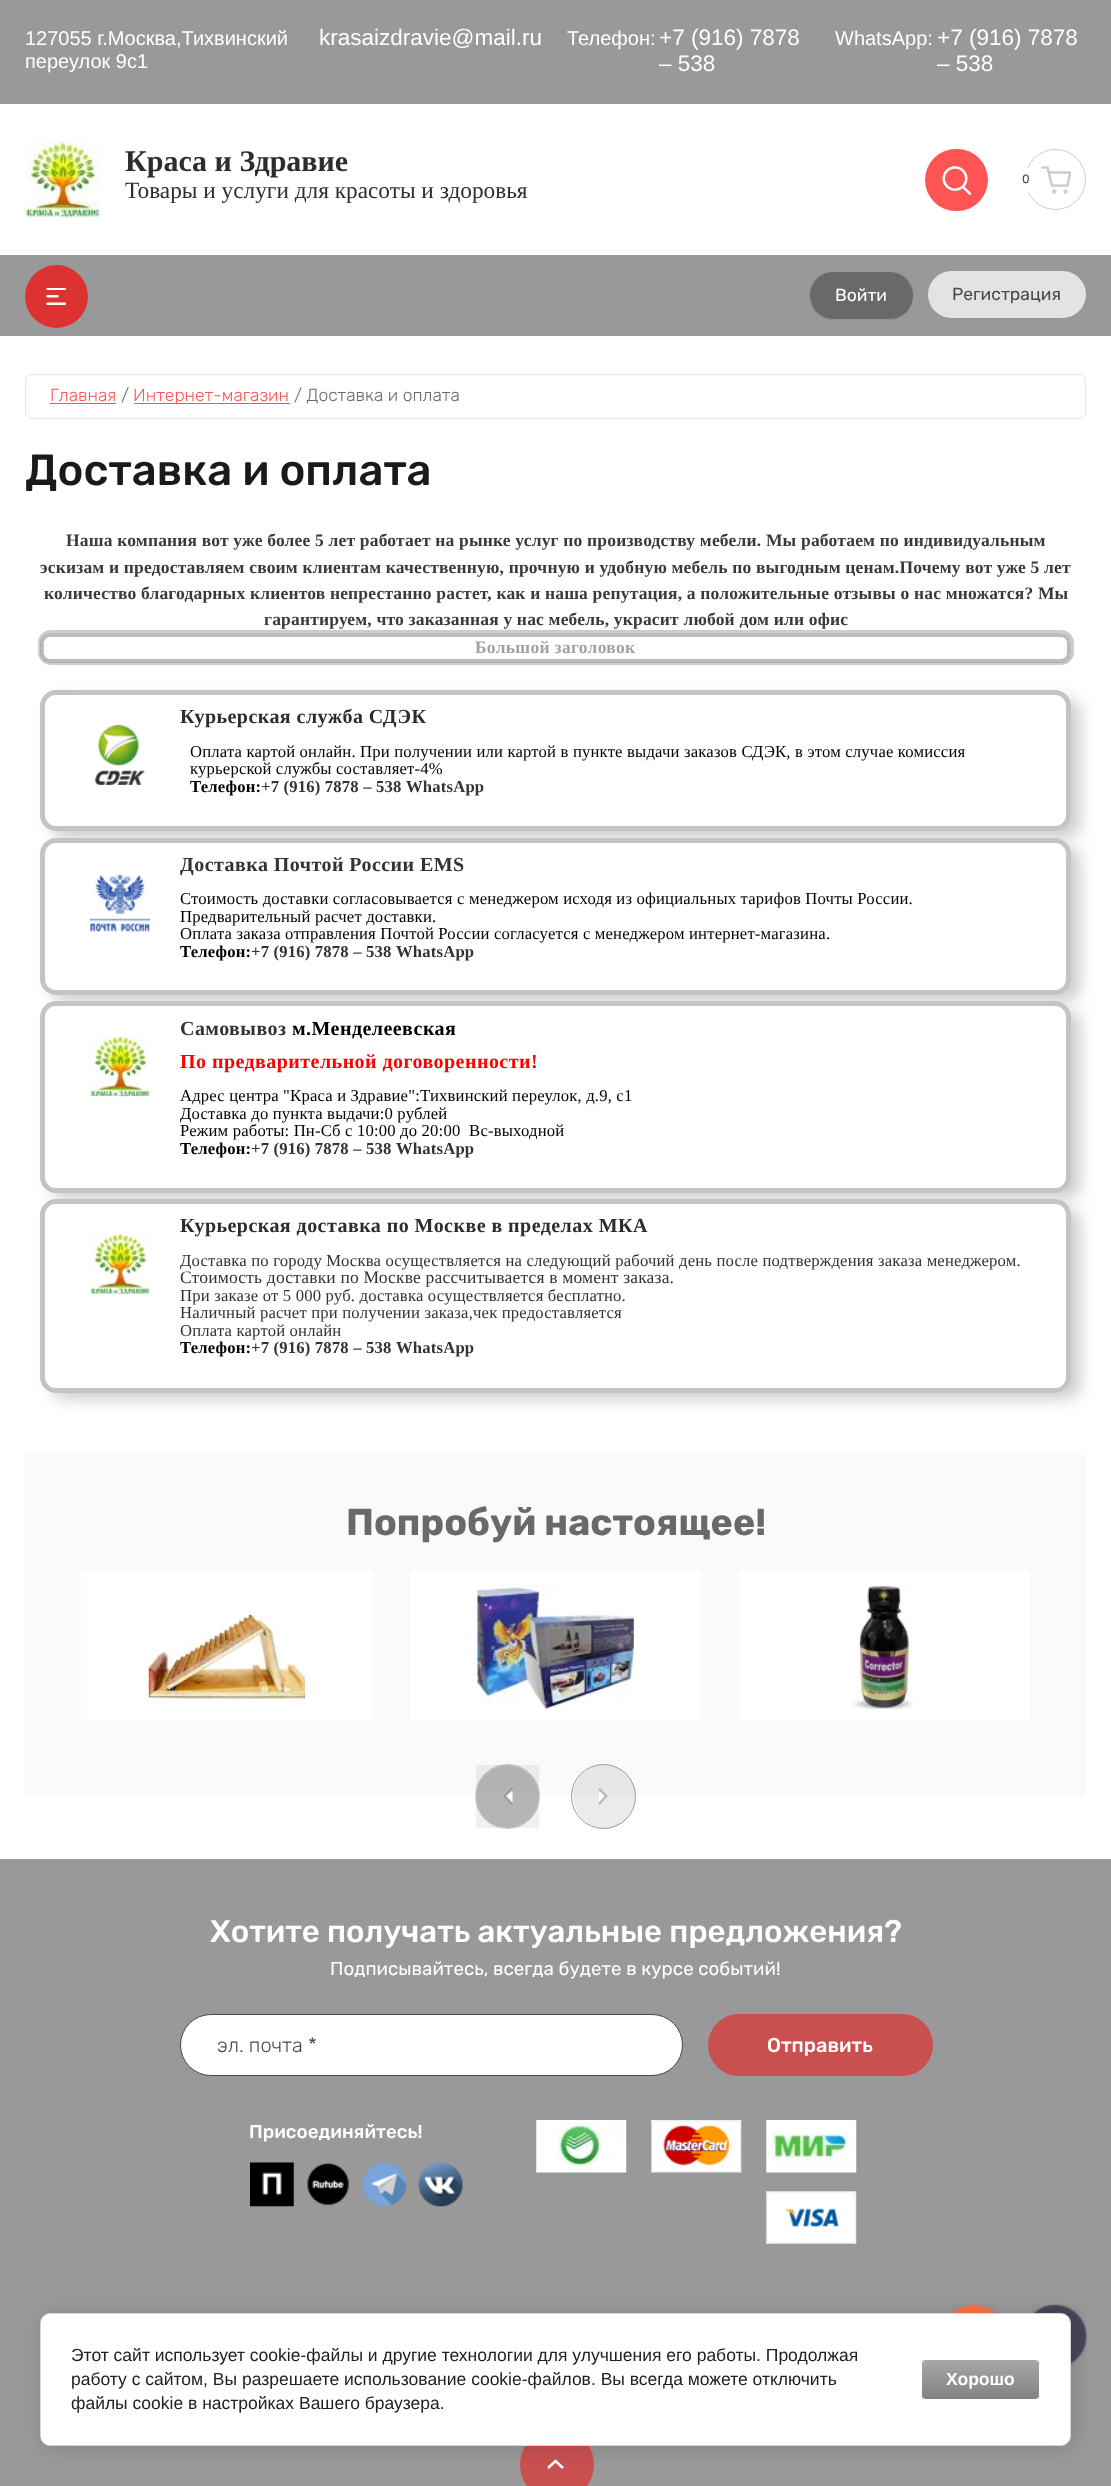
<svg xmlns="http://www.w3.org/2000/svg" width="1111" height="2486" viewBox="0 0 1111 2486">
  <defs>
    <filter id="blur1" x="-50%" y="-200%" width="200%" height="500%"><feGaussianBlur stdDeviation="7.5"/></filter>
    <filter id="blur2" x="-50%" y="-200%" width="200%" height="500%"><feGaussianBlur stdDeviation="11"/></filter>
    <clipPath id="clip1"><rect x="921" y="2359" width="119" height="41" rx="5"/></clipPath>
    <linearGradient id="g1" gradientUnits="userSpaceOnUse" x1="981" y1="2360" x2="981" y2="2399"><stop offset="0" stop-color="#a8a8a8"/><stop offset="1" stop-color="#828282"/></linearGradient>
  </defs>
  <rect width="100%" height="100%" fill="#999999"/>
  <text x="25" y="45" font-family="Liberation Sans" font-size="20" fill="#ffffff">127055 г.Москва,Тихвинский</text>
  <text x="25" y="68" font-family="Liberation Sans" font-size="20" fill="#ffffff">переулок 9с1</text>
  <text x="319" y="45" font-family="Liberation Sans" font-size="22.5" fill="#ffffff">krasaizdravie@mail.ru</text>
  <text x="567" y="45" font-family="Liberation Sans" font-size="20" fill="#ffffff">Телефон:</text>
  <text x="659" y="45" font-family="Liberation Sans" font-size="22.5" fill="#ffffff">+7 (916) 7878</text>
  <text x="659" y="71" font-family="Liberation Sans" font-size="22.5" fill="#ffffff">– 538</text>
  <text x="835" y="45" font-family="Liberation Sans" font-size="20" fill="#ffffff">WhatsApp:</text>
  <text x="937" y="45" font-family="Liberation Sans" font-size="22.5" fill="#ffffff">+7 (916) 7878</text>
  <text x="937" y="71" font-family="Liberation Sans" font-size="22.5" fill="#ffffff">– 538</text>
  <rect x="0" y="104" width="1111" height="151" fill="#ffffff"/>
  <image x="25" y="141" width="75" height="77" href="img1.png"/>
  <text x="125" y="171" font-family="Liberation Serif" font-size="30" font-weight="bold" fill="#2c2d2e">Краса и Здравие</text>
  <text x="125" y="198" font-family="Liberation Serif" font-size="23.3" fill="#2c2d2e">Товары и услуги для красоты и здоровья</text>
  <rect x="925" y="149" width="63" height="62" rx="31" fill="#ff5454"/>
  <image x="942" y="166" width="29" height="29" href="img2.png"/>
  <circle cx="1055.5" cy="179.5" r="30" fill="none" stroke="#cccccc"/>
  <circle cx="1026.5" cy="180.5" r="12.5" fill="#ffffff"/>
  <text x="1022" y="183" font-family="'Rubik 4'" font-size="12" font-weight="300" fill="#484c50">0</text>
  <image x="1041" y="166" width="30" height="28" href="img3.png"/>
  <circle cx="56.5" cy="296.5" r="31.5" fill="#dd3232"/>
  <image x="46" y="288" width="20" height="17" href="img4.png"/>
  <rect x="809" y="271" width="105" height="49" rx="24.5" fill="#696969"/>
  <rect x="809.5" y="271.5" width="104" height="48" rx="24" fill="none" stroke="#ffffff" stroke-opacity="0.3"/>
  <text x="835" y="301" font-family="'Rubik 4'" font-size="17.5" font-weight="300" fill="#ffffff">Войти</text>
  <rect x="928" y="271" width="158" height="47" rx="23.5" fill="#e3e3e3"/>
  <text x="952" y="300" font-family="'Rubik 4'" font-size="17.5" font-weight="300" fill="#4a4a4a">Регистрация</text>
  <rect x="0" y="336" width="1111" height="1523" fill="#ffffff"/>
  <rect x="25.5" y="374.5" width="1060" height="44" rx="5.5" fill="none" stroke="#e6e6e6"/>
  <text x="50" y="401" font-family="'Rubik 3'" font-size="17.5" font-weight="300" fill="#ff5454">Главная</text>
  <rect x="50" y="403" width="66" height="1" fill="#ff5454"/>
  <text x="121" y="401" font-family="'Rubik 3'" font-size="17.5" font-weight="300" fill="#696969">/</text>
  <rect x="134" y="403" width="156" height="1" fill="#ff5454"/>
  <text x="133" y="401" font-family="'Rubik 3'" font-size="17.5" font-weight="300" fill="#ff5454">Интернет-магазин</text>
  <text x="294" y="401" font-family="'Rubik 3'" font-size="17.5" font-weight="300" fill="#696969">/ Доставка и оплата</text>
  <text x="25" y="485" font-family="Rubik" font-size="43.75" font-weight="300" fill="#1a1a1a">Доставка и оплата</text>
  <text x="66" y="546" font-family="Liberation Serif" font-size="17.5" font-weight="bold" letter-spacing="0.18" fill="#3a3a3a">Наша компания вот уже более 5 лет работает на рынке услуг по производству мебели. Мы работаем по индивидуальным</text>
  <text x="40" y="573" font-family="Liberation Serif" font-size="17.5" font-weight="bold" letter-spacing="0.18" fill="#3a3a3a">эскизам и предоставляем своим клиентам качественную, прочную и удобную мебель по выгодным ценам.Почему вот уже 5 лет</text>
  <text x="44" y="599" font-family="Liberation Serif" font-size="17.5" font-weight="bold" letter-spacing="0.18" fill="#3a3a3a">количество благодарных клиентов непрестанно растет, как и наша репутация, а положительные отзывы о нас множатся? Мы</text>
  <text x="264" y="625" font-family="Liberation Serif" font-size="17.5" font-weight="bold" letter-spacing="0.18" fill="#3a3a3a">гарантируем, что заказанная у нас мебель, украсит любой дом или офис</text>
  <rect x="39.5" y="631.5" width="1033" height="32" rx="11.5" fill="none" stroke="#cccccc" stroke-width="3"/>
  <rect x="42" y="635" width="1027" height="26" rx="8" fill="none" stroke="#a2a2a2" stroke-opacity="0.72" stroke-width="4"/>
  <text x="475" y="653" font-family="Liberation Serif" font-size="17.5" font-weight="bold" letter-spacing="0.3" fill="#a2a2a2">Большой заголовок</text>
  <rect x="51" y="699" width="1029" height="139" rx="15" fill="#cccccc" filter="url(#blur1)"/>
  <rect x="40" y="690" width="1031" height="141" rx="16" fill="#ffffff"/>
  <rect x="42.5" y="692.5" width="1026" height="136" rx="13.5" fill="none" stroke="#a2a2a2" stroke-opacity="0.63" stroke-width="5"/>
  <image x="94" y="725" width="52" height="60" href="img5.png"/>
  <text x="180" y="723" font-family="Liberation Serif" font-size="20" font-weight="bold" letter-spacing="0.45" fill="#2c2d2e">Курьерская служба СДЭК</text>
  <text x="190" y="757" font-family="Liberation Serif" font-size="16.67" letter-spacing="0.18" fill="#000000">Оплата картой онлайн. При получении или картой в пункте выдачи заказов СДЭК, в этом случае комиссия</text>
  <text x="190" y="774" font-family="Liberation Serif" font-size="16.67" letter-spacing="0.18" fill="#000000">курьерской службы составляет-4%</text>
  <text x="190" y="792" font-family="Liberation Serif" font-size="16.67" font-weight="bold" letter-spacing="0.18" fill="#000000">Телефон:</text>
  <text x="261" y="792" font-family="Liberation Serif" font-size="16.67" font-weight="bold" letter-spacing="0.18" fill="#333333">+7 (916) 7878 – 538</text>
  <text x="406" y="792" font-family="Liberation Serif" font-size="16.67" font-weight="bold" letter-spacing="0.18" fill="#333333">WhatsApp</text>
  <rect x="51" y="846" width="1029" height="155" rx="15" fill="#cccccc" filter="url(#blur1)"/>
  <rect x="40" y="838" width="1031" height="157" rx="16" fill="#ffffff"/>
  <rect x="42.5" y="840.5" width="1026" height="152" rx="13.5" fill="none" stroke="#a2a2a2" stroke-opacity="0.63" stroke-width="5"/>
  <image x="90" y="873" width="60" height="59" href="img6.png"/>
  <text x="180" y="871" font-family="Liberation Serif" font-size="20" font-weight="bold" letter-spacing="0.45" fill="#333333">Доставка Почтой России EMS</text>
  <text x="180" y="904" font-family="Liberation Serif" font-size="16.67" letter-spacing="0.18" fill="#000000">Стоимость доставки согласовывается с менеджером исходя из официальных тарифов Почты России.</text>
  <text x="180" y="922" font-family="Liberation Serif" font-size="16.67" letter-spacing="0.18" fill="#000000">Предварительный расчет доставки.</text>
  <text x="180" y="939" font-family="Liberation Serif" font-size="16.67" letter-spacing="0.18" fill="#000000">Оплата заказа отправления Почтой России согласуется с менеджером интернет-магазина.</text>
  <text x="180" y="957" font-family="Liberation Serif" font-size="16.67" font-weight="bold" letter-spacing="0.18" fill="#000000">Телефон:</text>
  <text x="251" y="957" font-family="Liberation Serif" font-size="16.67" font-weight="bold" letter-spacing="0.18" fill="#333333">+7 (916) 7878 – 538</text>
  <text x="396" y="957" font-family="Liberation Serif" font-size="16.67" font-weight="bold" letter-spacing="0.18" fill="#333333">WhatsApp</text>
  <rect x="51" y="1010" width="1029" height="189" rx="15" fill="#cccccc" filter="url(#blur1)"/>
  <rect x="40" y="1001" width="1031" height="192" rx="16" fill="#ffffff"/>
  <rect x="42.5" y="1003.5" width="1026" height="187" rx="13.5" fill="none" stroke="#a2a2a2" stroke-opacity="0.63" stroke-width="5"/>
  <image x="90" y="1036" width="60" height="61" href="img7.png"/>
  <text x="180" y="1035" font-family="Liberation Serif" font-size="20" font-weight="bold" letter-spacing="0.45" fill="#333333">Самовывоз</text>
  <text x="292" y="1035" font-family="Liberation Serif" font-size="20" font-weight="bold" letter-spacing="0.45" fill="#000000">м.Менделеевская</text>
  <text x="180" y="1068" font-family="Liberation Serif" font-size="20" font-weight="bold" letter-spacing="0.45" fill="#ff0000">По предварительной договоренности!</text>
  <text x="180" y="1101" font-family="Liberation Serif" font-size="16.67" letter-spacing="0.18" fill="#000000">Адрес центра "Краса и Здравие":Тихвинский переулок, д.9, с1</text>
  <text x="180" y="1119" font-family="Liberation Serif" font-size="16.67" letter-spacing="0.18" fill="#000000">Доставка до пункта выдачи:0 рублей</text>
  <text x="180" y="1136" font-family="Liberation Serif" font-size="16.67" letter-spacing="0.18" fill="#000000" xml:space="preserve">Режим работы: Пн-Cб с 10:00 до 20:00  Вс-выходной</text>
  <text x="180" y="1154" font-family="Liberation Serif" font-size="16.67" font-weight="bold" letter-spacing="0.18" fill="#000000">Телефон:</text>
  <text x="251" y="1154" font-family="Liberation Serif" font-size="16.67" font-weight="bold" letter-spacing="0.18" fill="#333333">+7 (916) 7878 – 538</text>
  <text x="396" y="1154" font-family="Liberation Serif" font-size="16.67" font-weight="bold" letter-spacing="0.18" fill="#333333">WhatsApp</text>
  <rect x="51" y="1208" width="1029" height="191" rx="15" fill="#cccccc" filter="url(#blur1)"/>
  <rect x="40" y="1199" width="1031" height="194" rx="16" fill="#ffffff"/>
  <rect x="42.5" y="1201.5" width="1026" height="189" rx="13.5" fill="none" stroke="#a2a2a2" stroke-opacity="0.63" stroke-width="5"/>
  <image x="90" y="1233" width="60" height="61" href="img8.png"/>
  <text x="180" y="1232" font-family="Liberation Serif" font-size="20" font-weight="bold" letter-spacing="0.45" fill="#2c2d2e">Курьерская доставка по Москве в пределах МКА</text>
  <text x="180" y="1266" font-family="Liberation Serif" font-size="16.67" letter-spacing="0.18" fill="#333333">Доставка по городу Москва осуществляется на следующий рабочий день после подтверждения заказа менеджером.</text>
  <text x="180" y="1283" font-family="Liberation Serif" font-size="17.5" letter-spacing="0.18" fill="#333333">Стоимость доставки по Москве рассчитывается в момент заказа.</text>
  <text x="180" y="1301" font-family="Liberation Serif" font-size="16.67" letter-spacing="0.18" fill="#333333">При заказе от 5 000 руб. доставка осуществляется бесплатно.</text>
  <text x="180" y="1318" font-family="Liberation Serif" font-size="16.67" letter-spacing="0.18" fill="#333333">Наличный расчет при получении заказа,чек предоставляется</text>
  <text x="180" y="1336" font-family="Liberation Serif" font-size="16.67" letter-spacing="0.18" fill="#333333">Оплата картой онлайн</text>
  <text x="180" y="1353" font-family="Liberation Serif" font-size="16.67" font-weight="bold" letter-spacing="0.18" fill="#000000">Телефон:</text>
  <text x="251" y="1353" font-family="Liberation Serif" font-size="16.67" font-weight="bold" letter-spacing="0.18" fill="#333333">+7 (916) 7878 – 538</text>
  <text x="396" y="1353" font-family="Liberation Serif" font-size="16.67" font-weight="bold" letter-spacing="0.18" fill="#333333">WhatsApp</text>
  <rect x="25" y="1454" width="1061" height="342" rx="4" fill="#fafafa"/>
  <text x="346" y="1535" font-family="'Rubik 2'" font-size="37.5" font-weight="300" fill="#696969">Попробуй настоящее!</text>
  <rect x="81" y="1571" width="292" height="150" fill="#ffffff"/>
  <image x="148" y="1613" width="157" height="89" href="img9.png"/>
  <rect x="410" y="1571" width="291" height="150" fill="#ffffff"/>
  <image x="477" y="1584" width="157" height="125" href="img10.png"/>
  <rect x="739" y="1571" width="291" height="150" fill="#ffffff"/>
  <image x="852" y="1584" width="62" height="125" href="img11.png"/>
  <circle cx="507.5" cy="1796.5" r="32" fill="none" stroke="#000000" stroke-opacity="0.2"/>
  <rect x="476" y="1765" width="63" height="63" fill="#000000" fill-opacity="0.06"/>
  <circle cx="507.5" cy="1796.5" r="31.5" fill="#969696" fill-opacity="0.66"/>
  <path d="M512.5 1804L505 1796L512.5 1789" fill="#ffffff" stroke="#3a3a3a" stroke-opacity="0.3" stroke-width="2.5"/>
  <circle cx="603.5" cy="1796.5" r="32" fill="none" stroke="#9b9b9b"/>
  <rect x="573" y="1765" width="62" height="63" rx="31" fill="#000000" fill-opacity="0.08"/>
  <path d="M599 1789L606 1796L599 1804" fill="#ffffff" stroke="#3a3a3a" stroke-opacity="0.3" stroke-width="2.5"/>
  <text x="210" y="1942" font-family="Rubik" font-size="31.25" font-weight="300" fill="#ffffff">Хотите получать актуальные предложения?</text>
  <text x="330" y="1975" font-family="'Rubik 4'" font-size="18.75" font-weight="300" fill="#ffffff">Подписывайтесь, всегда будете в курсе событий!</text>
  <rect x="180.5" y="2014.5" width="502" height="61" rx="30.5" fill="#ffffff" stroke="#4a4a4a"/>
  <text x="217" y="2052" font-family="'Rubik 3'" font-size="20" font-weight="300" fill="#4a4a4a">эл. почта *</text>
  <rect x="708" y="2014" width="225" height="62" rx="31" fill="#ca5050"/>
  <text x="767" y="2052" font-family="Rubik" font-size="20" font-weight="300" fill="#ffffff">Отправить</text>
  <text x="249" y="2138" font-family="Rubik" font-size="18.75" font-weight="300" fill="#ffffff">Присоединяйтесь!</text>
  <image x="250" y="2162" width="44" height="45" href="img12.png"/>
  <image x="307" y="2162" width="42" height="44" href="img13.png"/>
  <image x="362" y="2162" width="45" height="45" href="img14.png"/>
  <image x="418" y="2162" width="45" height="45" href="img15.png"/>
  <image x="536" y="2120" width="91" height="53" href="img16.png"/>
  <image x="651" y="2120" width="91" height="53" href="img17.png"/>
  <image x="766" y="2120" width="91" height="53" href="img18.png"/>
  <image x="766" y="2191" width="91" height="53" href="img19.png"/>
  <rect x="25" y="2464" width="1061" height="1" fill="#9d9d9d"/>
  <rect x="520" y="2428" width="74" height="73" rx="36.5" fill="#ff0000" fill-opacity="0.48"/>
  <path d="M548 2468L555.5 2461L563 2468" fill="none" stroke="#ffffff" stroke-width="2.5"/>
  <image x="949" y="2304" width="49" height="9" href="img20.png"/>
  <image x="1030" y="2304" width="57" height="62" href="img21.png"/>
  <rect x="43" y="2315" width="1031" height="134" rx="10" fill="#000000" fill-opacity="0.14" filter="url(#blur2)"/>
  <rect x="40.5" y="2313.5" width="1030" height="132" rx="9.5" fill="#ffffff" stroke="#d6d6d6"/>
  <text x="71" y="2361" font-family="Liberation Sans" font-size="17.5" fill="#212121">Этот сайт использует cookie-файлы и другие технологии для улучшения его работы. Продолжая</text>
  <text x="71" y="2385" font-family="Liberation Sans" font-size="17.5" fill="#212121">работу с сайтом, Вы разрешаете использование cookie-файлов. Вы всегда можете отключить</text>
  <text x="71" y="2409" font-family="Liberation Sans" font-size="17.5" fill="#212121">файлы cookie в настройках Вашего браузера.</text>
  <g clip-path="url(#clip1)">
    <rect x="921" y="2360" width="119" height="39" fill="url(#g1)"/>
  </g>
  <rect x="921.5" y="2359.5" width="118" height="40" rx="4.5" fill="none" stroke="#ffffff"/>
  <text x="946" y="2385" font-family="Liberation Sans" font-size="17.5" font-weight="bold" fill="#ffffff">Хорошо</text>
</svg>
